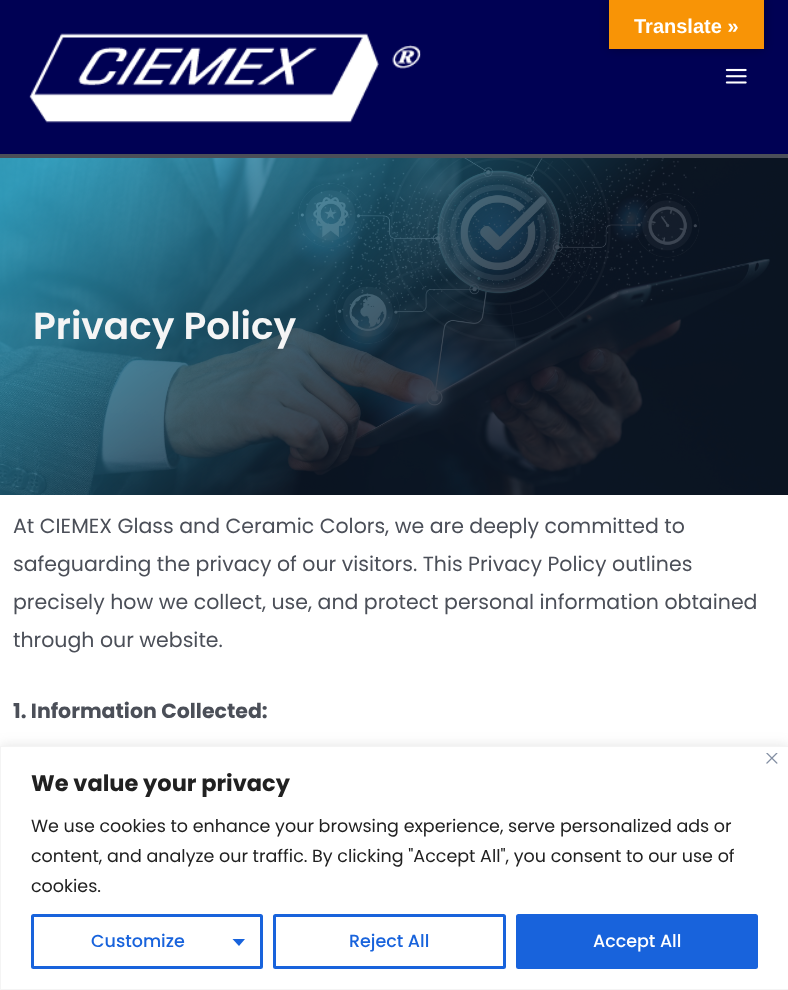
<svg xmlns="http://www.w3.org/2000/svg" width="788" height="990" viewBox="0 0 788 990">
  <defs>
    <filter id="blur1" x="-50%" y="-200%" width="200%" height="500%"><feGaussianBlur stdDeviation="5.5"/></filter>
    <filter id="blur2" x="-50%" y="-200%" width="200%" height="500%"><feGaussianBlur stdDeviation="6"/></filter>
  </defs>
  <rect width="100%" height="100%" fill="#ffffff"/>
  <rect x="0" y="0" width="788" height="154" fill="#000154"/>
  <rect x="609" y="0" width="155" height="49" fill="#000000" fill-opacity="0.3" filter="url(#blur1)"/>
  <rect x="609" y="0" width="155" height="49" fill="#f89406"/>
  <text x="634" y="33" font-family="Liberation Sans" font-size="20" font-weight="bold" fill="#ffffff">Translate »</text>
  <image x="29" y="33" width="392" height="90" href="img1.png"/>
  <image x="725" y="68" width="22" height="16" href="img2.png"/>
  <image x="0" y="158" width="788" height="337" href="img3.png"/>
  <rect x="0" y="154" width="788" height="4" fill="#4b4f58"/>
  <text x="33" y="339" font-family="Poppins" font-size="37.5" font-weight="600" fill="#f5f5f5">Privacy Policy</text>
  <text x="13" y="533" font-family="Poppins" font-size="20.5" fill="#4b4f58">At CIEMEX Glass and Ceramic Colors, we are deeply committed to</text>
  <text x="13" y="571" font-family="Poppins" font-size="20.5" fill="#4b4f58">safeguarding the privacy of our visitors. This Privacy Policy outlines</text>
  <text x="13" y="609" font-family="Poppins" font-size="20.5" fill="#4b4f58">precisely how we collect, use, and protect personal information obtained</text>
  <text x="13" y="647" font-family="Poppins" font-size="20.5" fill="#4b4f58">through our website.</text>
  <text x="13" y="718" font-family="Poppins" font-size="20.5" font-weight="bold" fill="#4b4f58">1. Information Collected:</text>
  <rect x="0" y="745" width="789" height="244" fill="#acabab" fill-opacity="0.3" filter="url(#blur2)"/>
  <rect x="0.5" y="746.5" width="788" height="243" fill="#ffffff" stroke="#f4f4f4"/>
  <image x="766" y="753" width="12" height="11" href="img4.png"/>
  <text x="31" y="791" font-family="Poppins" font-size="22.5" font-weight="bold" fill="#212121">We value your privacy</text>
  <text x="31" y="832" font-family="Poppins" font-size="17.5" fill="#212121">We use cookies to enhance your browsing experience, serve personalized ads or</text>
  <text x="31" y="862" font-family="Poppins" font-size="17.5" fill="#212121">content, and analyze our traffic. By clicking "Accept All", you consent to our use of</text>
  <text x="31" y="892" font-family="Poppins" font-size="17.5" fill="#212121">cookies.</text>
  <rect x="32.5" y="915.5" width="229" height="52" rx="1" fill="none" stroke="#1863dc" stroke-width="3"/>
  <text x="91" y="947" font-family="Poppins" font-size="17.5" font-weight="500" fill="#1863dc">Customize</text>
  <path d="M232.5 939H245L239 946Z" fill="#1863dc"/>
  <rect x="274.5" y="915.5" width="230" height="52" rx="1" fill="none" stroke="#1863dc" stroke-width="3"/>
  <text x="349" y="947" font-family="Poppins" font-size="17.5" font-weight="500" fill="#1863dc">Reject All</text>
  <rect x="517.5" y="915.5" width="239" height="52" rx="1" fill="#1863dc" stroke="#1863dc" stroke-width="3"/>
  <text x="593" y="947" font-family="Poppins" font-size="17.5" font-weight="500" fill="#ffffff">Accept All</text>
</svg>
